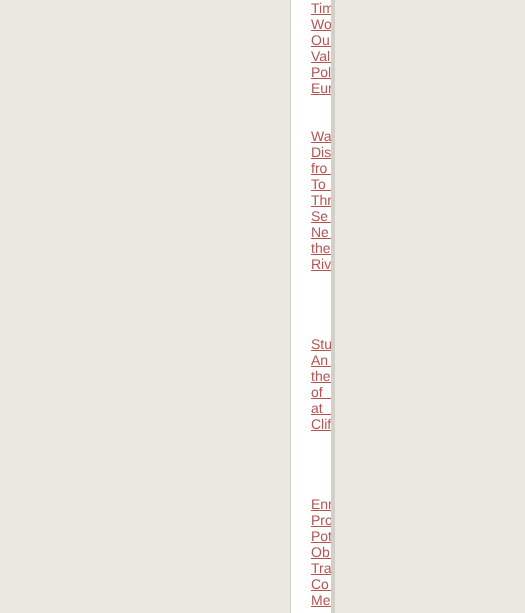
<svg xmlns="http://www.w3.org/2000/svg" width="525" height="613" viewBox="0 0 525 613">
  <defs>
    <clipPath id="clip1"><rect x="291" y="0" width="40" height="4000"/></clipPath>
  </defs>
  <rect width="100%" height="100%" fill="#eae8e0"/>
  <rect x="291" y="0" width="40" height="613" fill="#ffffff"/>
  <rect x="331" y="0" width="4" height="613" fill="#d2d0c9"/>
  <rect x="290" y="0" width="1" height="613" fill="#d2d0c9"/>
  <g clip-path="url(#clip1)">
    <text x="311" y="13" font-family="Liberation Sans" font-size="14" fill="#b45451">Tim</text>
  </g>
  <rect x="311" y="14" width="20" height="1" fill="#b45451"/>
  <g clip-path="url(#clip1)">
    <text x="311" y="29" font-family="Liberation Sans" font-size="14" fill="#b45451">Wo</text>
  </g>
  <rect x="311" y="30" width="20" height="1" fill="#b45451"/>
  <text x="311" y="45" font-family="Liberation Sans" font-size="14" fill="#b45451">Ou</text>
  <rect x="311" y="46" width="20" height="1" fill="#b45451"/>
  <text x="311" y="61" font-family="Liberation Sans" font-size="14" fill="#b45451">Val</text>
  <rect x="311" y="62" width="20" height="1" fill="#b45451"/>
  <text x="311" y="77" font-family="Liberation Sans" font-size="14" fill="#b45451">Pol</text>
  <rect x="311" y="78" width="20" height="1" fill="#b45451"/>
  <g clip-path="url(#clip1)">
    <text x="311" y="93" font-family="Liberation Sans" font-size="14" fill="#b45451">Eur</text>
  </g>
  <rect x="311" y="94" width="20" height="1" fill="#b45451"/>
  <text x="311" y="141" font-family="Liberation Sans" font-size="14" fill="#b45451">Wa</text>
  <rect x="311" y="142" width="20" height="1" fill="#b45451"/>
  <text x="311" y="157" font-family="Liberation Sans" font-size="14" fill="#b45451">Dis</text>
  <rect x="311" y="158" width="20" height="1" fill="#b45451"/>
  <text x="311" y="173" font-family="Liberation Sans" font-size="14" fill="#b45451">fro</text>
  <rect x="311" y="174" width="20" height="1" fill="#b45451"/>
  <text x="311" y="189" font-family="Liberation Sans" font-size="14" fill="#b45451">To</text>
  <rect x="311" y="190" width="20" height="1" fill="#b45451"/>
  <g clip-path="url(#clip1)">
    <text x="311" y="205" font-family="Liberation Sans" font-size="14" fill="#b45451">Thr</text>
  </g>
  <rect x="311" y="206" width="20" height="1" fill="#b45451"/>
  <text x="311" y="221" font-family="Liberation Sans" font-size="14" fill="#b45451">Se</text>
  <rect x="311" y="222" width="20" height="1" fill="#b45451"/>
  <text x="311" y="237" font-family="Liberation Sans" font-size="14" fill="#b45451">Ne</text>
  <rect x="311" y="238" width="20" height="1" fill="#b45451"/>
  <text x="311" y="253" font-family="Liberation Sans" font-size="14" fill="#b45451">the</text>
  <rect x="311" y="254" width="20" height="1" fill="#b45451"/>
  <text x="311" y="269" font-family="Liberation Sans" font-size="14" fill="#b45451">Riv</text>
  <rect x="311" y="270" width="20" height="1" fill="#b45451"/>
  <g clip-path="url(#clip1)">
    <text x="311" y="349" font-family="Liberation Sans" font-size="14" fill="#b45451">Stu</text>
  </g>
  <rect x="311" y="350" width="20" height="1" fill="#b45451"/>
  <text x="311" y="365" font-family="Liberation Sans" font-size="14" fill="#b45451">An</text>
  <rect x="311" y="366" width="20" height="1" fill="#b45451"/>
  <text x="311" y="381" font-family="Liberation Sans" font-size="14" fill="#b45451">the</text>
  <rect x="311" y="382" width="20" height="1" fill="#b45451"/>
  <text x="311" y="397" font-family="Liberation Sans" font-size="14" fill="#b45451">of</text>
  <rect x="311" y="398" width="20" height="1" fill="#b45451"/>
  <text x="311" y="413" font-family="Liberation Sans" font-size="14" fill="#b45451">at</text>
  <rect x="311" y="414" width="20" height="1" fill="#b45451"/>
  <g clip-path="url(#clip1)">
    <text x="311" y="429" font-family="Liberation Sans" font-size="14" fill="#b45451">Clif</text>
  </g>
  <rect x="311" y="430" width="20" height="1" fill="#b45451"/>
  <g clip-path="url(#clip1)">
    <text x="311" y="509" font-family="Liberation Sans" font-size="14" fill="#b45451">Enr</text>
  </g>
  <rect x="311" y="510" width="20" height="1" fill="#b45451"/>
  <g clip-path="url(#clip1)">
    <text x="311" y="525" font-family="Liberation Sans" font-size="14" fill="#b45451">Pro</text>
  </g>
  <rect x="311" y="526" width="20" height="1" fill="#b45451"/>
  <g clip-path="url(#clip1)">
    <text x="311" y="541" font-family="Liberation Sans" font-size="14" fill="#b45451">Pot</text>
  </g>
  <rect x="311" y="542" width="20" height="1" fill="#b45451"/>
  <text x="311" y="557" font-family="Liberation Sans" font-size="14" fill="#b45451">Ob</text>
  <rect x="311" y="558" width="20" height="1" fill="#b45451"/>
  <text x="311" y="573" font-family="Liberation Sans" font-size="14" fill="#b45451">Tra</text>
  <rect x="311" y="574" width="20" height="1" fill="#b45451"/>
  <text x="311" y="589" font-family="Liberation Sans" font-size="14" fill="#b45451">Co</text>
  <rect x="311" y="590" width="20" height="1" fill="#b45451"/>
  <text x="311" y="605" font-family="Liberation Sans" font-size="14" fill="#b45451">Me</text>
  <rect x="311" y="606" width="20" height="1" fill="#b45451"/>
</svg>
